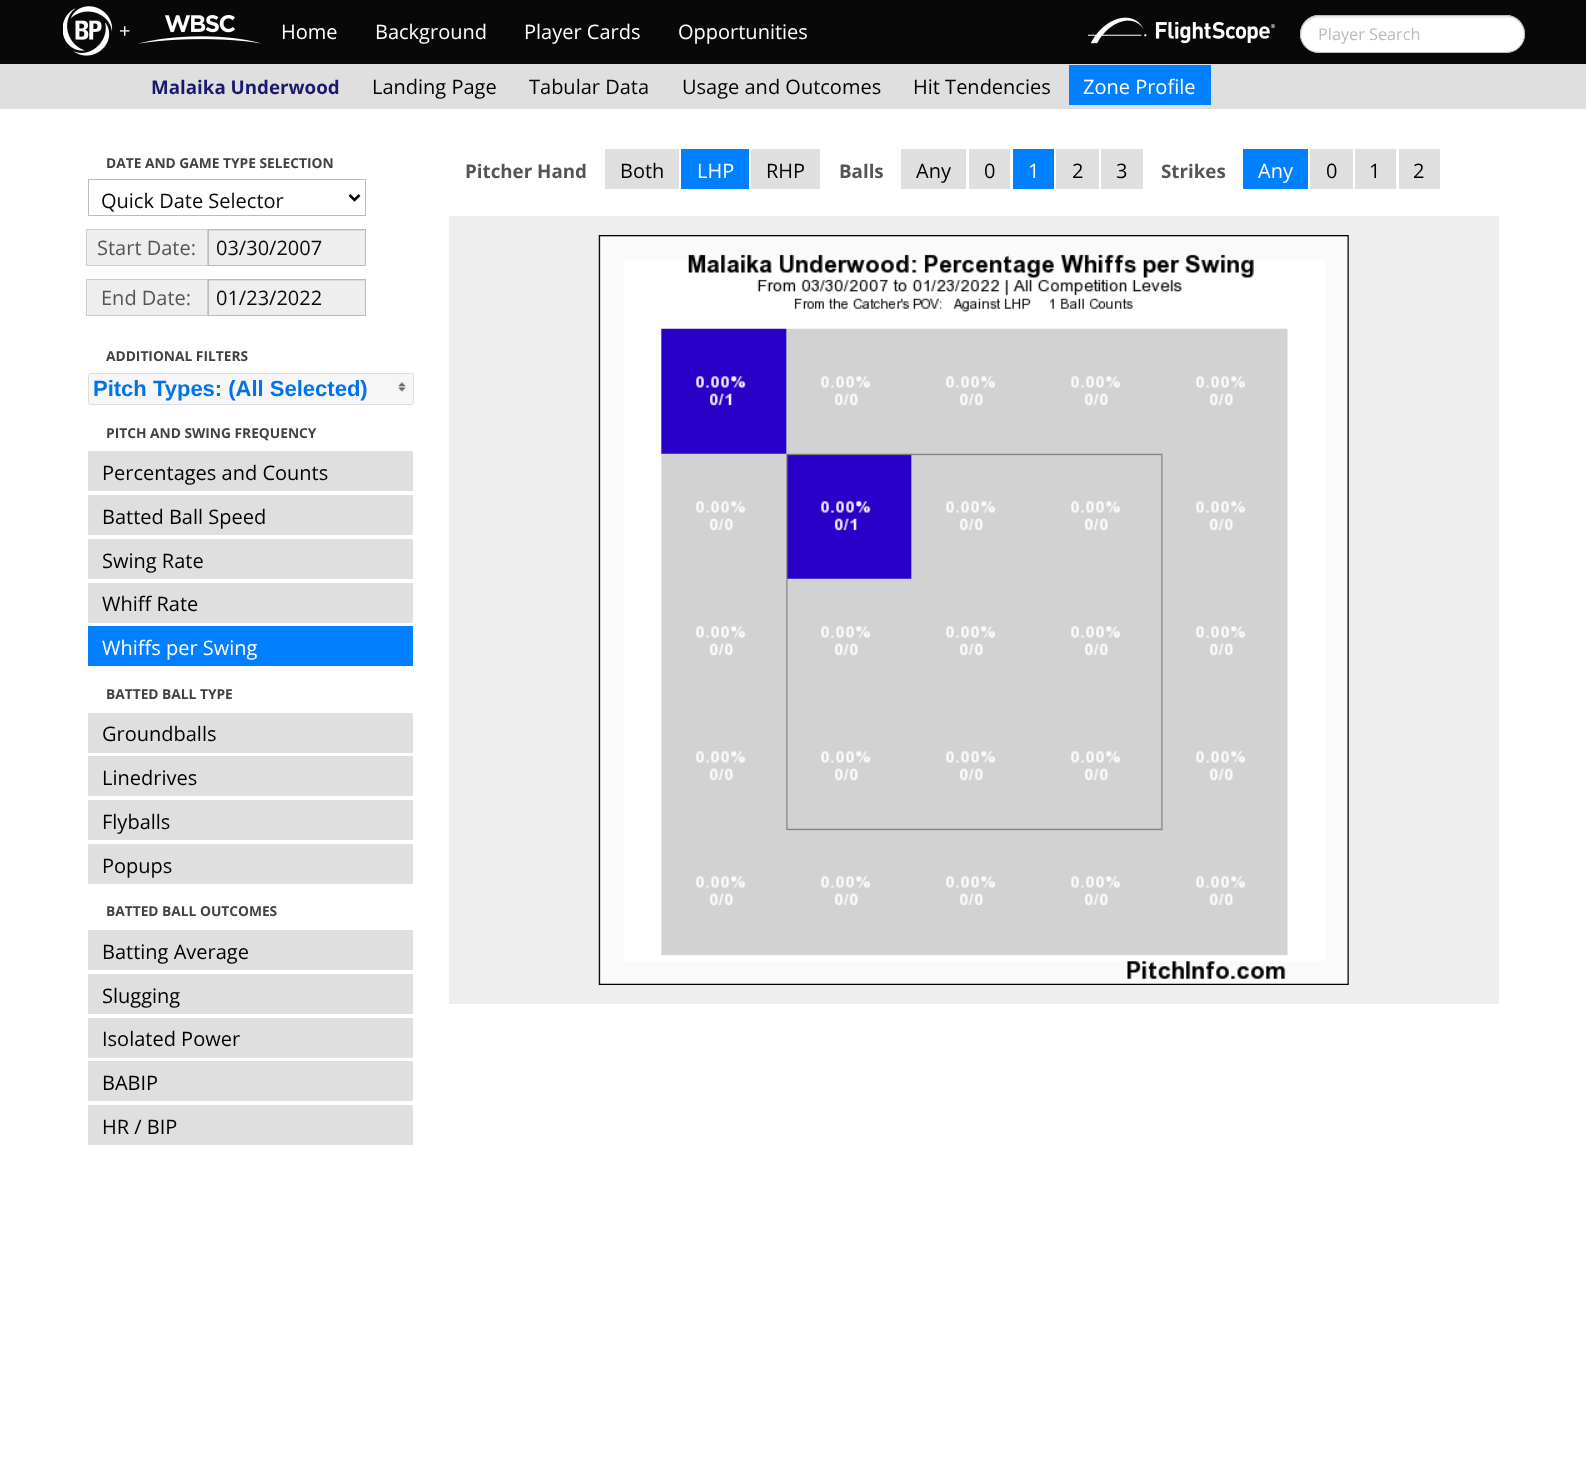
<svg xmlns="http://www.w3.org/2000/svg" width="1586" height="1484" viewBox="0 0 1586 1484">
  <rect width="100%" height="100%" fill="#ffffff"/>
  <rect x="0" y="0" width="1586" height="64" fill="#080808"/>
  <image x="63" y="6" width="50" height="50" href="img1.png"/>
  <text x="119" y="38" font-family="Open Sans" font-size="20" fill="#ffffff">+</text>
  <image x="138" y="15" width="123" height="29" href="img2.png"/>
  <text x="281" y="39" font-family="Open Sans" font-size="20" fill="#ffffff">Home</text>
  <text x="375" y="39" font-family="Open Sans" font-size="20" fill="#ffffff">Background</text>
  <text x="524" y="39" font-family="Open Sans" font-size="20" fill="#ffffff">Player Cards</text>
  <text x="678" y="39" font-family="Open Sans" font-size="20" fill="#ffffff">Opportunities</text>
  <image x="1088" y="17" width="187" height="27" href="img3.png"/>
  <rect x="1300" y="15" width="225" height="38" rx="19" fill="#ffffff"/>
  <path d="M1319 18H1510C1520 20 1525 29 1523 38L1524 34C1524 24 1516 16 1506 16H1318C1309 16 1301 24 1301 34L1302 39C1300 29 1306 18 1319 18Z" fill="#ececec"/>
  <rect x="1300.5" y="15.5" width="224" height="37" rx="18.5" fill="none" stroke="#bbbbbb"/>
  <text x="1318" y="40" font-family="Open Sans" font-size="16.25" fill="#bbbbbb">Player Search</text>
  <rect x="0" y="64" width="1586" height="45" fill="#dfdfdf"/>
  <text x="151" y="94" font-family="Open Sans" font-size="18.75" font-weight="bold" fill="#191970">Malaika Underwood</text>
  <text x="372" y="94" font-family="Open Sans" font-size="20" fill="#000000">Landing Page</text>
  <text x="529" y="94" font-family="Open Sans" font-size="20" fill="#000000">Tabular Data</text>
  <text x="682" y="94" font-family="Open Sans" font-size="20" fill="#000000">Usage and Outcomes</text>
  <text x="913" y="94" font-family="Open Sans" font-size="20" fill="#000000">Hit Tendencies</text>
  <rect x="1069" y="65" width="142" height="40" fill="#007fff"/>
  <text x="1083" y="94" font-family="Open Sans" font-size="20" fill="#ffffff">Zone Profile</text>
  <text x="106" y="168" font-family="Open Sans" font-size="13.75" font-weight="bold" fill="#424242">DATE AND GAME TYPE SELECTION</text>
  <rect x="88.5" y="179.5" width="277" height="36" fill="none" stroke="#bbbbbb"/>
  <path d="M349.5 195L354.5 200L359.5 195" fill="none" stroke="#080808" stroke-width="2.5"/>
  <text x="101" y="208" font-family="Open Sans" font-size="20" fill="#080808">Quick Date Selector</text>
  <rect x="86.5" y="229.5" width="121" height="36" fill="#eeeeee" stroke="#cccccc"/>
  <text x="97" y="255" font-family="Open Sans" font-size="20" fill="#555555">Start Date:</text>
  <rect x="209" y="231" width="156" height="34" fill="#eeeeee"/>
  <rect x="209" y="230" width="156" height="1" fill="#dcdcdc"/>
  <rect x="208.5" y="229.5" width="157" height="36" fill="none" stroke="#bbbbbb"/>
  <text x="216" y="255" font-family="Open Sans" font-size="20" fill="#080808">03/30/2007</text>
  <rect x="86.5" y="279.5" width="121" height="36" fill="#eeeeee" stroke="#cccccc"/>
  <text x="101" y="305" font-family="Open Sans" font-size="20" fill="#555555">End Date:</text>
  <rect x="209" y="281" width="156" height="34" fill="#eeeeee"/>
  <rect x="209" y="280" width="156" height="1" fill="#dcdcdc"/>
  <rect x="208.5" y="279.5" width="157" height="36" fill="none" stroke="#bbbbbb"/>
  <text x="216" y="305" font-family="Open Sans" font-size="20" fill="#080808">01/23/2022</text>
  <text x="106" y="361" font-family="Open Sans" font-size="13.75" font-weight="bold" fill="#424242">ADDITIONAL FILTERS</text>
  <rect x="88" y="373" width="326" height="32" rx="2.5" fill="#f6f6f6"/>
  <rect x="88" y="404" width="1" height="1" fill="#f9f9f9"/>
  <rect x="88.5" y="373.5" width="325" height="31" rx="2" fill="none" stroke="#dddddd"/>
  <text x="93" y="396" font-family="Liberation Sans" font-size="22" font-weight="bold" fill="#0073ea">Pitch Types: (All Selected)</text>
  <image x="398" y="382" width="8" height="10" href="img4.png"/>
  <text x="106" y="438" font-family="Open Sans" font-size="13.75" font-weight="bold" fill="#424242">PITCH AND SWING FREQUENCY</text>
  <rect x="88" y="451" width="325" height="40" fill="#dfdfdf"/>
  <text x="102" y="480" font-family="Open Sans" font-size="20" fill="#000000">Percentages and Counts</text>
  <rect x="88" y="495" width="325" height="40" fill="#dfdfdf"/>
  <text x="102" y="524" font-family="Open Sans" font-size="20" fill="#000000">Batted Ball Speed</text>
  <rect x="88" y="539" width="325" height="40" fill="#dfdfdf"/>
  <text x="102" y="568" font-family="Open Sans" font-size="20" fill="#000000">Swing Rate</text>
  <rect x="88" y="583" width="325" height="40" fill="#dfdfdf"/>
  <text x="102" y="611" font-family="Open Sans" font-size="20" fill="#000000">Whiff Rate</text>
  <rect x="88" y="626" width="325" height="40" fill="#007fff"/>
  <text x="102" y="655" font-family="Open Sans" font-size="20" fill="#ffffff">Whiffs per Swing</text>
  <text x="106" y="699" font-family="Open Sans" font-size="13.75" font-weight="bold" fill="#424242">BATTED BALL TYPE</text>
  <rect x="88" y="713" width="325" height="40" fill="#dfdfdf"/>
  <text x="102" y="741" font-family="Open Sans" font-size="20" fill="#000000">Groundballs</text>
  <rect x="88" y="756" width="325" height="40" fill="#dfdfdf"/>
  <text x="102" y="785" font-family="Open Sans" font-size="20" fill="#000000">Linedrives</text>
  <rect x="88" y="800" width="325" height="40" fill="#dfdfdf"/>
  <text x="102" y="829" font-family="Open Sans" font-size="20" fill="#000000">Flyballs</text>
  <rect x="88" y="844" width="325" height="40" fill="#dfdfdf"/>
  <text x="102" y="873" font-family="Open Sans" font-size="20" fill="#000000">Popups</text>
  <text x="106" y="916" font-family="Open Sans" font-size="13.75" font-weight="bold" fill="#424242">BATTED BALL OUTCOMES</text>
  <rect x="88" y="930" width="325" height="40" fill="#dfdfdf"/>
  <text x="102" y="959" font-family="Open Sans" font-size="20" fill="#000000">Batting Average</text>
  <rect x="88" y="974" width="325" height="40" fill="#dfdfdf"/>
  <text x="102" y="1003" font-family="Open Sans" font-size="20" fill="#000000">Slugging</text>
  <rect x="88" y="1018" width="325" height="40" fill="#dfdfdf"/>
  <text x="102" y="1046" font-family="Open Sans" font-size="20" fill="#000000">Isolated Power</text>
  <rect x="88" y="1061" width="325" height="40" fill="#dfdfdf"/>
  <text x="102" y="1090" font-family="Open Sans" font-size="20" fill="#000000">BABIP</text>
  <rect x="88" y="1105" width="325" height="40" fill="#dfdfdf"/>
  <text x="102" y="1134" font-family="Open Sans" font-size="20" fill="#000000">HR / BIP</text>
  <text x="465" y="178" font-family="Open Sans" font-size="18.75" font-weight="bold" fill="#555555">Pitcher Hand</text>
  <rect x="605" y="149" width="74" height="40" fill="#dfdfdf"/>
  <text x="620" y="178" font-family="Open Sans" font-size="20" fill="#000000">Both</text>
  <rect x="681" y="149" width="68" height="40" fill="#007fff"/>
  <text x="697" y="178" font-family="Open Sans" font-size="20" fill="#ffffff">LHP</text>
  <rect x="751" y="149" width="69" height="40" fill="#dfdfdf"/>
  <text x="766" y="178" font-family="Open Sans" font-size="20" fill="#000000">RHP</text>
  <text x="839" y="178" font-family="Open Sans" font-size="18.75" font-weight="bold" fill="#555555">Balls</text>
  <rect x="901" y="149" width="65" height="40" fill="#dfdfdf"/>
  <text x="916" y="178" font-family="Open Sans" font-size="20" fill="#000000">Any</text>
  <rect x="969" y="149" width="41" height="40" fill="#dfdfdf"/>
  <text x="984" y="178" font-family="Open Sans" font-size="20" fill="#000000">0</text>
  <rect x="1013" y="149" width="41" height="40" fill="#007fff"/>
  <text x="1028" y="178" font-family="Open Sans" font-size="20" fill="#ffffff">1</text>
  <rect x="1056" y="149" width="43" height="40" fill="#dfdfdf"/>
  <text x="1072" y="178" font-family="Open Sans" font-size="20" fill="#000000">2</text>
  <rect x="1101" y="149" width="42" height="40" fill="#dfdfdf"/>
  <text x="1116" y="178" font-family="Open Sans" font-size="20" fill="#000000">3</text>
  <text x="1161" y="178" font-family="Open Sans" font-size="18.75" font-weight="bold" fill="#555555">Strikes</text>
  <rect x="1243" y="149" width="65" height="40" fill="#007fff"/>
  <text x="1258" y="178" font-family="Open Sans" font-size="20" fill="#ffffff">Any</text>
  <rect x="1310" y="149" width="43" height="40" fill="#dfdfdf"/>
  <text x="1326" y="178" font-family="Open Sans" font-size="20" fill="#000000">0</text>
  <rect x="1355" y="149" width="41" height="40" fill="#dfdfdf"/>
  <text x="1369" y="178" font-family="Open Sans" font-size="20" fill="#000000">1</text>
  <rect x="1399" y="149" width="41" height="40" fill="#dfdfdf"/>
  <text x="1413" y="178" font-family="Open Sans" font-size="20" fill="#000000">2</text>
  <rect x="449" y="216" width="1050" height="788" fill="#eeeeee"/>
  <image x="598" y="235" width="751" height="750" href="img5.png"/>
</svg>
